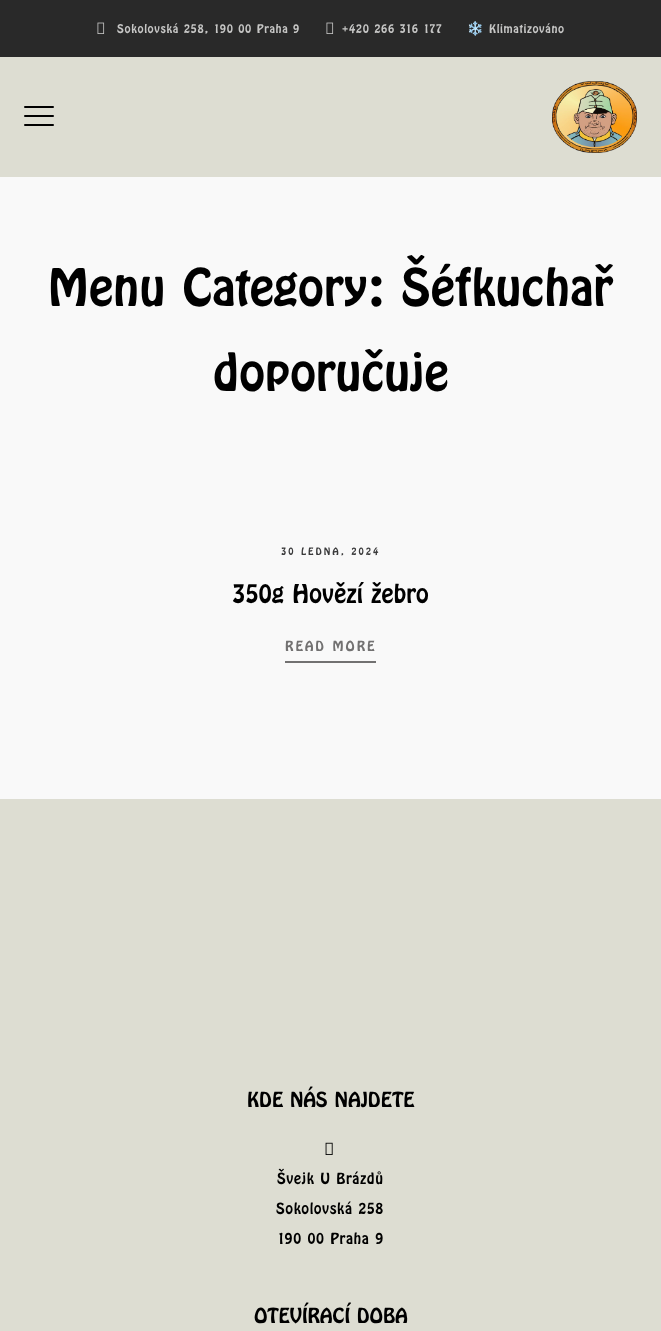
<svg xmlns="http://www.w3.org/2000/svg" width="661" height="1331" viewBox="0 0 661 1331">
  <rect width="100%" height="100%" fill="#f9f9f9"/>
  <rect x="0" y="0" width="661" height="57" fill="#292929"/>
  <image x="97" y="22" width="8" height="12" href="img1.png"/>
  <text x="117" y="33" font-family="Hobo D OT" font-size="13.25" letter-spacing="0.7" fill="#c6c6c5">Sokolovská 258, 190 00 Praha 9</text>
  <image x="326" y="22" width="8" height="12" href="img1.png"/>
  <text x="342" y="33" font-family="Hobo D OT" font-size="13.25" letter-spacing="0.7" fill="#c6c6c5">+420 266 316 177</text>
  <text x="467" y="33" font-family="Noto Color Emoji" font-size="13.25" letter-spacing="0.7" fill="#c6c6c5">❄️</text>
  <text x="489" y="33" font-family="Hobo D OT" font-size="13.25" letter-spacing="0.7" fill="#c6c6c5">Klimatizováno</text>
  <rect x="0" y="57" width="661" height="120" fill="#ddddd2"/>
  <rect x="24" y="115" width="30" height="2" rx="1" fill="#000000"/>
  <rect x="24" y="106" width="30" height="2" rx="1" fill="#000000"/>
  <rect x="24" y="124" width="30" height="2" rx="1" fill="#000000"/>
  <image x="552" y="81" width="85" height="72" href="img2.png"/>
  <text x="48" y="306" font-family="Hobo D OT" font-size="57" fill="#000000">Menu Category: Šéfkuchař</text>
  <text x="213" y="391" font-family="Hobo D OT" font-size="57" fill="#000000">doporučuje</text>
  <text x="281" y="555" font-family="Hobo D OT" font-size="11.25" letter-spacing="2" fill="#3a3a3b">30 LEDNA, 2024</text>
  <text x="232" y="603" font-family="Hobo D OT" font-size="28.5" fill="#000000">350g Hovězí žebro</text>
  <rect x="285" y="661" width="91" height="2" fill="#727171"/>
  <text x="285" y="651" font-family="Hobo D OT" font-size="15.5" letter-spacing="2" fill="#727171">READ MORE</text>
  <rect x="0" y="799" width="661" height="532" fill="#ddddd2"/>
  <text x="247" y="1107" font-family="Hobo D OT" font-size="23" fill="#000000">KDE NÁS NAJDETE</text>
  <image x="325" y="1142" width="8" height="13" href="img3.png"/>
  <text x="277" y="1184" font-family="Hobo D OT" font-size="17" letter-spacing="0.6" fill="#000000">Švejk U Brázdů</text>
  <text x="276" y="1214" font-family="Hobo D OT" font-size="17" letter-spacing="0.6" fill="#000000">Sokolovská 258</text>
  <text x="277" y="1244" font-family="Hobo D OT" font-size="17" letter-spacing="0.6" fill="#000000">190 00 Praha 9</text>
  <text x="254" y="1323" font-family="Hobo D OT" font-size="23" fill="#000000">OTEVÍRACÍ DOBA</text>
</svg>
